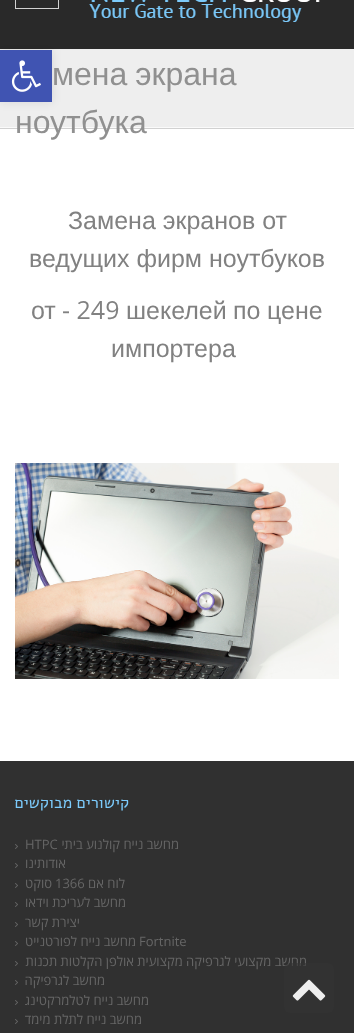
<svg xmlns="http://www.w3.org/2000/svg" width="354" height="1033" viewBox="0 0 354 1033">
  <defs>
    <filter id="blur1" x="-50%" y="-200%" width="200%" height="500%"><feGaussianBlur stdDeviation="5"/></filter>
  </defs>
  <rect width="100%" height="100%" fill="#ffffff"/>
  <rect x="0" y="0" width="354" height="49" fill="#292929"/>
  <image x="0" y="49" width="354" height="80" href="img3.png"/>
  <rect x="0" y="50" width="52" height="52" fill="#000000" fill-opacity="0.1" filter="url(#blur1)"/>
  <rect x="0" y="50" width="52" height="52" fill="#4054b2"/>
  <image x="11" y="60" width="30" height="32" href="img1.png"/>
  <image x="89" y="0" width="231" height="22" href="img2.png"/>
  <rect x="15.5" y="-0.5" width="43" height="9" fill="none" stroke="#d1d1d1"/>
  <text x="52" y="85" word-spacing="-1" font-family="Liberation Sans" font-size="32" fill="#909090">мена экрана</text>
  <text x="15" y="133" font-family="Liberation Sans" font-size="32" fill="#909090">ноутбука</text>
  <text x="68" y="229" font-family="Liberation Sans" font-size="25" fill="#818181">Замена экранов от</text>
  <text x="29" y="267" font-family="Liberation Sans" font-size="25" fill="#818181">ведущих фирм ноутбуков</text>
  <text x="267" y="319" font-family="Liberation Sans" font-size="25" fill="#818181">цене</text>
  <text x="233" y="319" font-family="Liberation Sans" font-size="25" fill="#818181">по</text>
  <text x="126" y="319" font-family="Liberation Sans" font-size="25" fill="#818181">шекелей</text>
  <text x="62" y="319" font-family="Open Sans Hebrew" font-size="25" fill="#818181">- 249</text>
  <text x="31" y="319" font-family="Liberation Sans" font-size="25" fill="#818181">от</text>
  <text x="111" y="357" font-family="Liberation Sans" font-size="25" fill="#818181">импортера</text>
  <image x="15" y="463" width="324" height="216" href="img4.png"/>
  <rect x="0" y="761" width="354" height="272" fill="#303030"/>
  <text x="129" y="808" font-family="Alef" font-size="16" direction="rtl" fill="#7ccbfc">קישורים מבוקשים</text>
  <image x="15" y="844" width="3" height="5" href="img5.png"/>
  <text x="179" y="849" font-family="Open Sans" font-size="13" direction="rtl" fill="#666666">מחשב נייח קולנוע ביתי</text>
  <text x="25" y="849" font-family="Open Sans" font-size="13" fill="#666666">HTPC</text>
  <image x="15" y="863" width="3" height="5" href="img5.png"/>
  <text x="66" y="868" font-family="Open Sans" font-size="13" direction="rtl" fill="#666666">אודותינו</text>
  <image x="15" y="883" width="3" height="5" href="img5.png"/>
  <text x="125" y="888" font-family="Open Sans" font-size="13" direction="rtl" fill="#666666">לוח אם</text>
  <text x="55" y="888" font-family="Open Sans" font-size="13" fill="#666666">1366</text>
  <text x="52" y="888" font-family="Open Sans" font-size="13" direction="rtl" fill="#666666">סוקט</text>
  <image x="15" y="902" width="3" height="5" href="img5.png"/>
  <text x="126" y="907" font-family="Open Sans" font-size="13" direction="rtl" fill="#666666">מחשב לעריכת וידאו</text>
  <image x="15" y="922" width="3" height="5" href="img5.png"/>
  <text x="80" y="927" font-family="Open Sans" font-size="13" direction="rtl" fill="#666666">יצירת קשר</text>
  <image x="15" y="941" width="3" height="5" href="img5.png"/>
  <text x="139" y="946" font-family="Open Sans" font-size="13" fill="#666666">Fortnite</text>
  <text x="136" y="946" font-family="Open Sans" font-size="13" direction="rtl" fill="#666666">מחשב נייח לפורטנייט</text>
  <image x="15" y="961" width="3" height="5" href="img5.png"/>
  <text x="307" y="966" font-family="Open Sans" font-size="13" direction="rtl" fill="#666666">מחשב מקצועי לגרפיקה מקצועית אולפן הקלטות תכנות</text>
  <image x="15" y="980" width="3" height="5" href="img5.png"/>
  <text x="105" y="985" font-family="Open Sans" font-size="13" direction="rtl" fill="#666666">מחשב לגרפיקה</text>
  <image x="15" y="1000" width="3" height="5" href="img5.png"/>
  <text x="149" y="1005" font-family="Open Sans" font-size="13" direction="rtl" fill="#666666">מחשב נייח לטלמרקטינג</text>
  <image x="15" y="1019" width="3" height="5" href="img5.png"/>
  <text x="142" y="1024" font-family="Open Sans" font-size="13" direction="rtl" fill="#666666">מחשב נייח לתלת מימד</text>
  <rect x="284" y="963" width="50" height="50" rx="6" fill="#333333" fill-opacity="0.6"/>
  <image x="292" y="979" width="34" height="22" href="img6.png"/>
</svg>
